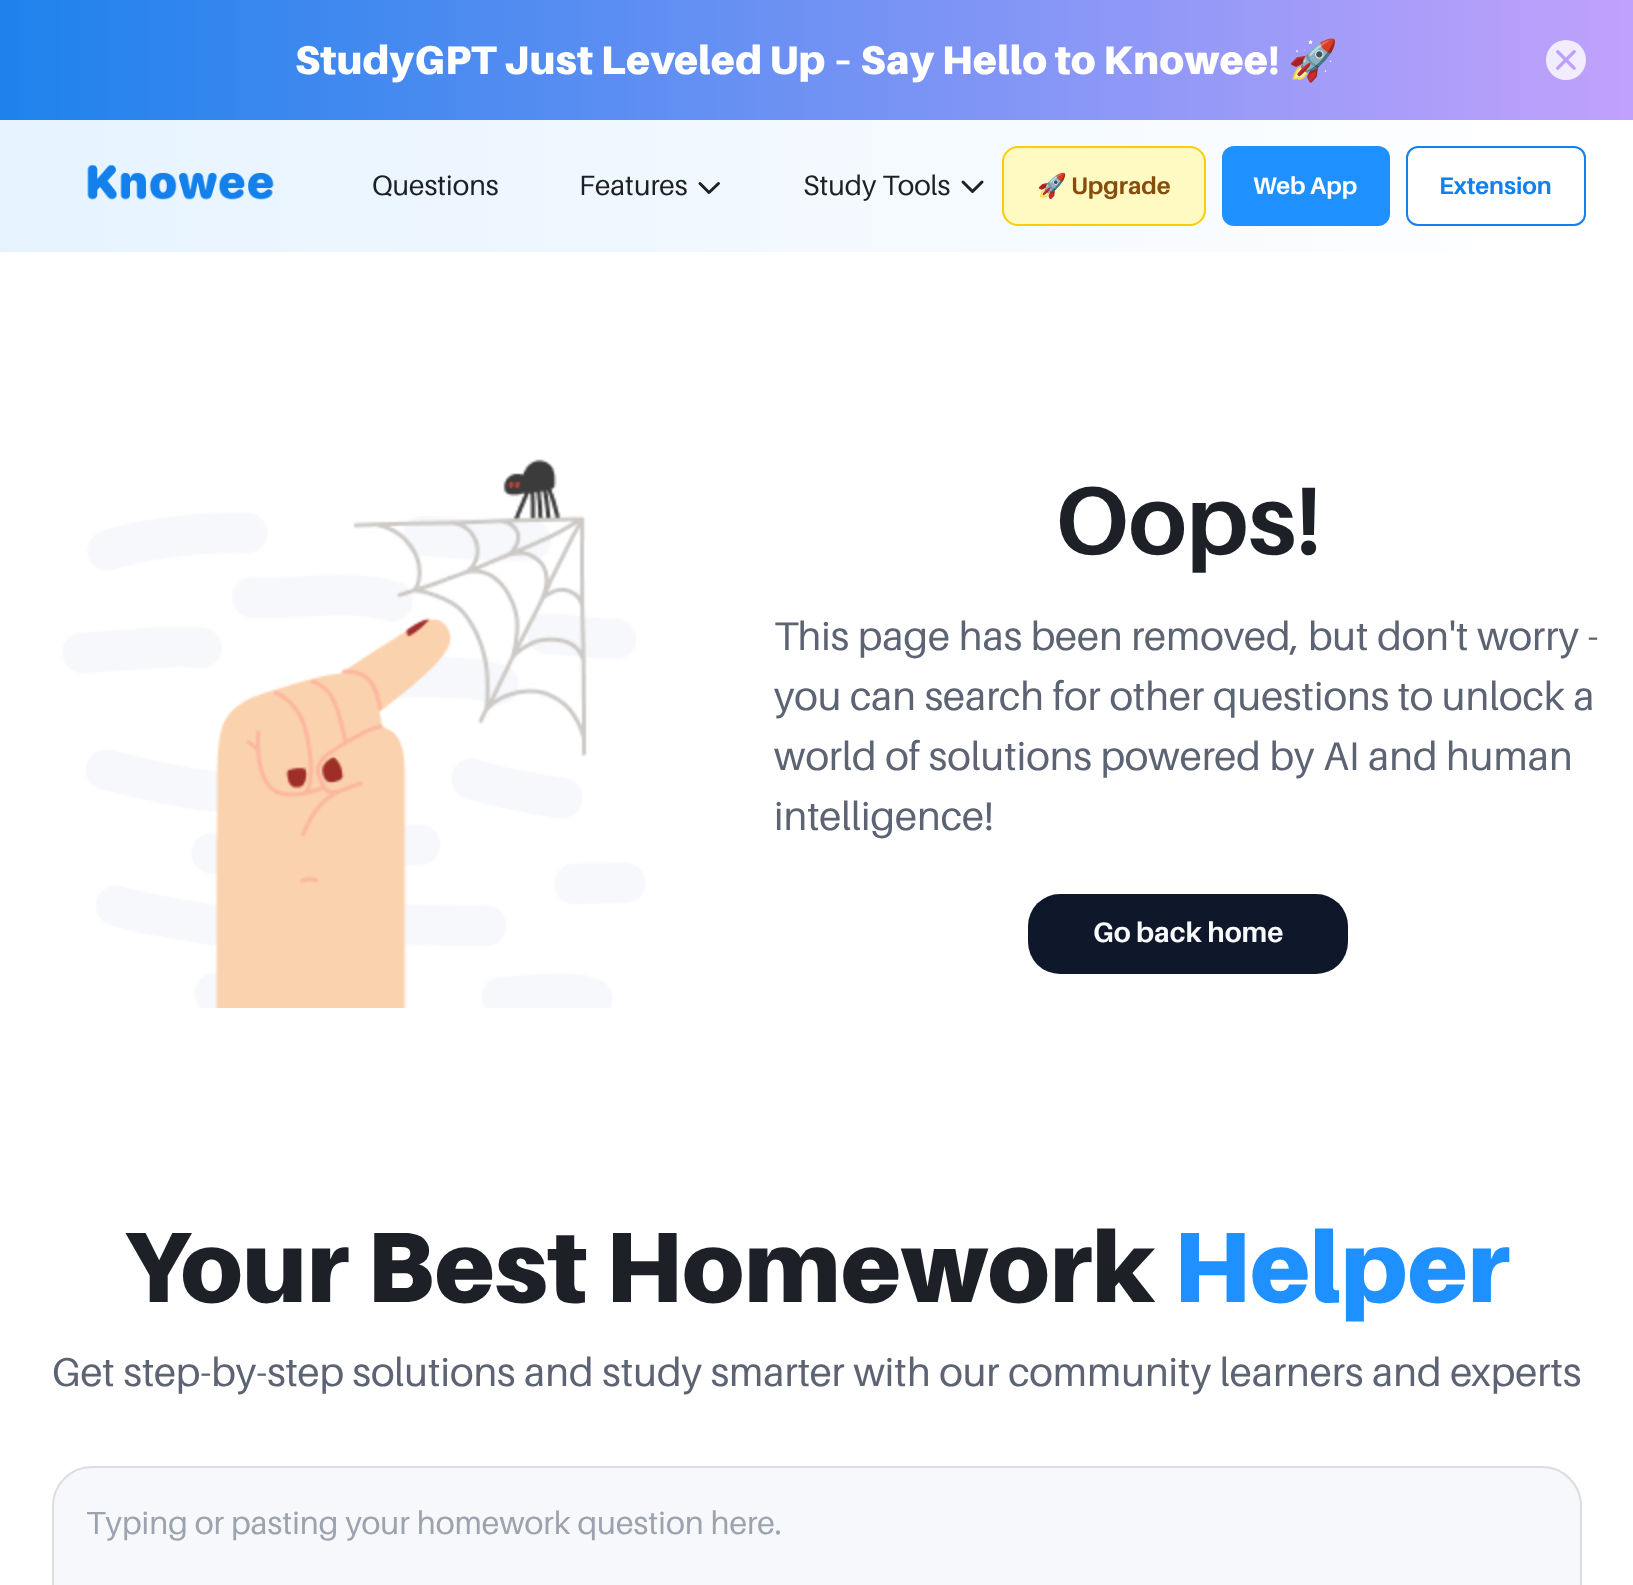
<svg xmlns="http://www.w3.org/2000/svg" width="1633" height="1585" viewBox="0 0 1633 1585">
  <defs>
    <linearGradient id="g1" gradientUnits="userSpaceOnUse" x1="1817" y1="60" x2="-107" y2="60"><stop offset="0" stop-color="#d3a5fd"/><stop offset="1" stop-color="#1380eb"/></linearGradient>
    <linearGradient id="g2" gradientUnits="userSpaceOnUse" x1="0" y1="186" x2="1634" y2="186"><stop offset="0" stop-color="#e6f3ff"/><stop offset="1" stop-color="#ffffff"/></linearGradient>
  </defs>
  <rect width="100%" height="100%" fill="#ffffff"/>
  <rect x="0" y="0" width="1633" height="120" fill="url(#g1)"/>
  <text x="295" y="74" font-family="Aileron" font-size="40" font-weight="900" letter-spacing="0.3" fill="#ffffff">StudyGPT Just Leveled Up – Say Hello to Knowee!</text>
  <text x="1288" y="74" font-family="Noto Color Emoji" font-size="40" font-weight="bold" letter-spacing="0.3" fill="#ffffff">🚀</text>
  <circle cx="1566" cy="60" r="20" fill="#ffffff" fill-opacity="0.8"/>
  <image x="1556" y="50" width="20" height="20" href="img1.png"/>
  <rect x="0" y="120" width="1471" height="132" fill="url(#g2)"/>
  <image x="87" y="165" width="187" height="35" href="img2.png"/>
  <text x="372" y="195" font-family="Aileron" font-size="28" fill="#1d2026">Questions</text>
  <text x="579" y="195" font-family="Aileron" font-size="28" fill="#1d2026">Features</text>
  <path d="M718.5 183.5L709 192.5L700 183.5" fill="none" stroke="#1d2026" stroke-width="3" stroke-linecap="round" stroke-linejoin="round"/>
  <text x="803" y="195" font-family="Aileron" font-size="28" fill="#1d2026">Study Tools</text>
  <path d="M982 182L972.5 191.5L963 182" fill="none" stroke="#1d2026" stroke-width="3" stroke-linecap="round" stroke-linejoin="round"/>
  <rect x="1003" y="147" width="202" height="78" rx="15" fill="#fff9c2" stroke="#fccc0a" stroke-width="2"/>
  <text x="1037" y="194" font-family="Noto Color Emoji" font-size="24" font-weight="bold" fill="#864d0d">🚀</text>
  <text x="1071" y="194" font-family="Aileron" font-size="24" font-weight="bold" fill="#864d0d">Upgrade</text>
  <rect x="1222" y="146" width="168" height="80" rx="12" fill="#1f90ff"/>
  <text x="1253" y="194" font-family="Aileron" font-size="24" font-weight="bold" fill="#ffffff">Web App</text>
  <rect x="1407" y="147" width="178" height="78" rx="11" fill="#ffffff" stroke="#1380eb" stroke-width="2"/>
  <text x="1439" y="194" font-family="Aileron" font-size="24" font-weight="bold" fill="#1380eb">Extension</text>
  <image x="62" y="459" width="584" height="549" href="img3.png"/>
  <text x="1055" y="554" font-family="Aileron" font-size="96" font-weight="bold" fill="#1d2026">Oops!</text>
  <text x="774" y="650" font-family="Aileron" font-size="40" fill="#5c6373">This page has been removed, but don't worry -</text>
  <text x="774" y="710" font-family="Aileron" font-size="40" fill="#5c6373">you can search for other questions to unlock a</text>
  <text x="774" y="770" font-family="Aileron" font-size="40" fill="#5c6373">world of solutions powered by AI and human</text>
  <text x="774" y="830" font-family="Aileron" font-size="40" fill="#5c6373">intelligence!</text>
  <rect x="1028" y="894" width="320" height="80" rx="32" fill="#0f172a"/>
  <text x="1093" y="942" font-family="Aileron" font-size="28" font-weight="bold" fill="#f8fafc">Go back home</text>
  <text x="124" y="1302" font-family="Aileron" font-size="100" font-weight="900" fill="#1d2026">Your Best Homework</text>
  <text x="1173" y="1302" font-family="Aileron" font-size="100" font-weight="900" fill="#1f90ff">Helper</text>
  <text x="52" y="1386" font-family="Aileron" font-size="40" fill="#5c6373">Get step-by-step solutions and study smarter with our community learners and experts</text>
  <rect x="53" y="1467" width="1528" height="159" rx="39" fill="#f7f8fb" stroke="#dcdde0" stroke-width="2"/>
  <text x="86" y="1534" font-family="Aileron" font-size="32" fill="#9ca3af">Typing or pasting your homework question here.</text>
</svg>
